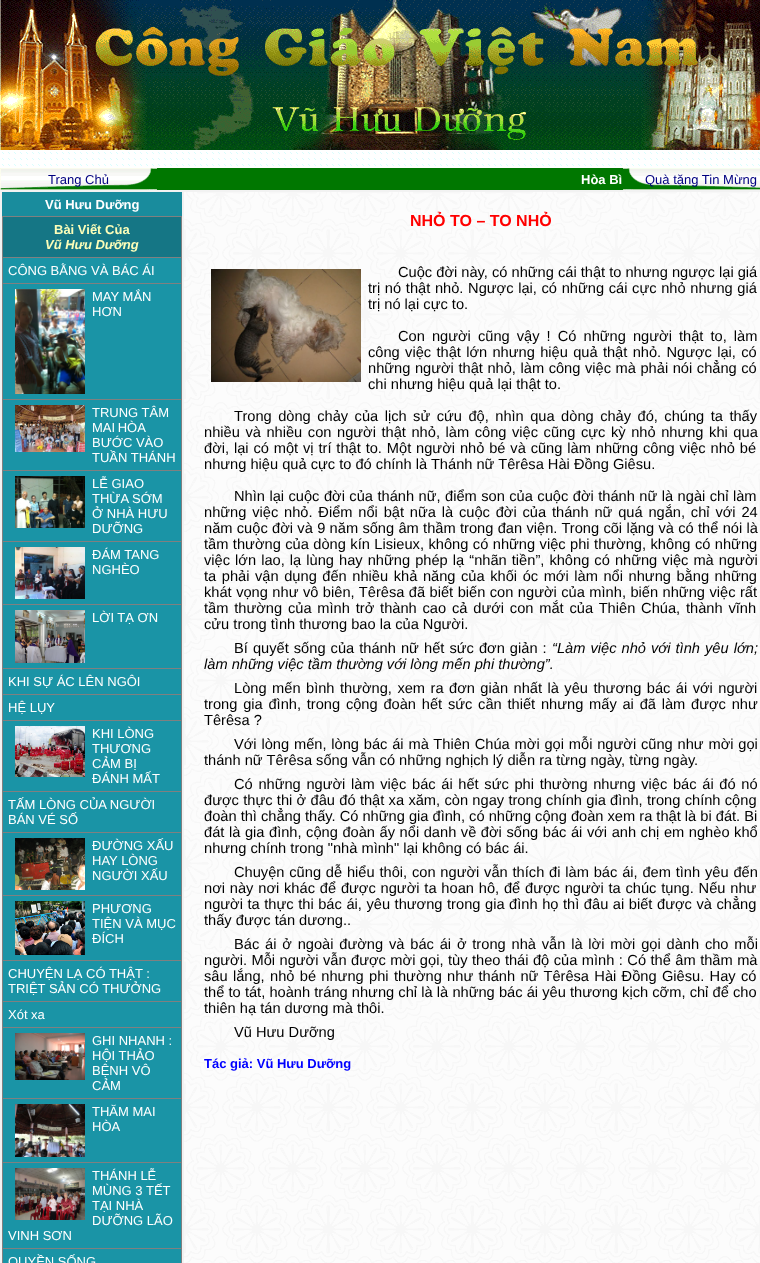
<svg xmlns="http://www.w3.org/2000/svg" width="760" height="1263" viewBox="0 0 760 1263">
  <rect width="100%" height="100%" fill="#ffffff"/>
  <image x="2" y="150" width="758" height="18" href="img1.png"/>
  <image x="0" y="0" width="760" height="150" href="img2.png"/>
  <image x="0" y="168" width="157" height="22" href="img3.png"/>
  <text x="48" y="184" font-family="Liberation Sans" font-size="13" fill="#000080">Trang Chủ</text>
  <rect x="157" y="168" width="466" height="22" fill="#007700"/>
  <text x="581" y="184" font-family="Liberation Sans" font-size="13" font-weight="bold" fill="#ffffff">Hòa Bì</text>
  <image x="623" y="168" width="137" height="22" href="img4.png"/>
  <text x="645" y="184" font-family="Liberation Sans" font-size="13" fill="#000080">Quà tặng Tin Mừng</text>
  <rect x="0.5" y="190.5" width="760" height="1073" fill="none" stroke="#f2f2f2"/>
  <rect x="1.5" y="191.5" width="181" height="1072" fill="none" stroke="#f2f2f2"/>
  <rect x="2" y="192" width="180" height="24" fill="#198c9d"/>
  <text x="45" y="209" font-family="Liberation Sans" font-size="13" font-weight="bold" fill="#ffffff">Vũ Hưu Dưỡng</text>
  <rect x="2" y="216" width="180" height="1" fill="#808080"/>
  <rect x="181" y="216" width="1" height="1047" fill="#808080"/>
  <rect x="2" y="216" width="1" height="1047" fill="#808080"/>
  <rect x="3" y="217" width="178" height="40" fill="#157685"/>
  <text x="54" y="234" font-family="Liberation Sans" font-size="13" font-weight="bold" fill="#fcfeb9">Bài Viết Của</text>
  <text x="45" y="249" font-family="Liberation Sans" font-size="13" font-weight="bold" font-style="italic" fill="#fcfeb9">Vũ Hưu Dưỡng</text>
  <rect x="3" y="258" width="178" height="25" fill="#1a94a6"/>
  <rect x="2" y="257" width="180" height="1" fill="#808080"/>
  <text x="8" y="275" font-family="Liberation Sans" font-size="13" fill="#ffffff">CÔNG BẰNG VÀ BÁC ÁI</text>
  <rect x="3" y="284" width="178" height="115" fill="#1a94a6"/>
  <rect x="2" y="283" width="180" height="1" fill="#808080"/>
  <image x="15" y="289" width="70" height="105" href="img5.png"/>
  <text x="92" y="301" font-family="Liberation Sans" font-size="13" fill="#ffffff">MAY MẮN</text>
  <text x="92" y="316" font-family="Liberation Sans" font-size="13" fill="#ffffff">HƠN</text>
  <rect x="3" y="400" width="178" height="70" fill="#1a94a6"/>
  <rect x="2" y="399" width="180" height="1" fill="#808080"/>
  <image x="15" y="405" width="70" height="47" href="img6.png"/>
  <text x="92" y="417" font-family="Liberation Sans" font-size="13" fill="#ffffff">TRUNG TÂM</text>
  <text x="92" y="432" word-spacing="-1" font-family="Liberation Sans" font-size="13" fill="#ffffff">MAI HÒA</text>
  <text x="92" y="447" font-family="Liberation Sans" font-size="13" fill="#ffffff">BƯỚC VÀO</text>
  <text x="92" y="462" font-family="Liberation Sans" font-size="13" fill="#ffffff">TUẦN THÁNH</text>
  <rect x="3" y="471" width="178" height="70" fill="#1a94a6"/>
  <rect x="2" y="470" width="180" height="1" fill="#808080"/>
  <image x="15" y="476" width="70" height="52" href="img7.png"/>
  <text x="92" y="488" font-family="Liberation Sans" font-size="13" fill="#ffffff">LỄ GIAO</text>
  <text x="92" y="503" font-family="Liberation Sans" font-size="13" fill="#ffffff">THỪA SỚM</text>
  <text x="92" y="518" font-family="Liberation Sans" font-size="13" fill="#ffffff">Ở NHÀ HƯU</text>
  <text x="92" y="533" font-family="Liberation Sans" font-size="13" fill="#ffffff">DƯỠNG</text>
  <rect x="3" y="542" width="178" height="62" fill="#1a94a6"/>
  <rect x="2" y="541" width="180" height="1" fill="#808080"/>
  <image x="15" y="547" width="70" height="52" href="img8.png"/>
  <text x="92" y="559" font-family="Liberation Sans" font-size="13" fill="#ffffff">ĐÁM TANG</text>
  <text x="92" y="574" font-family="Liberation Sans" font-size="13" fill="#ffffff">NGHÈO</text>
  <rect x="3" y="605" width="178" height="63" fill="#1a94a6"/>
  <rect x="2" y="604" width="180" height="1" fill="#808080"/>
  <image x="15" y="610" width="70" height="53" href="img9.png"/>
  <text x="92" y="622" font-family="Liberation Sans" font-size="13" fill="#ffffff">LỜI TẠ ƠN</text>
  <rect x="3" y="669" width="178" height="25" fill="#1a94a6"/>
  <rect x="2" y="668" width="180" height="1" fill="#808080"/>
  <text x="8" y="686" font-family="Liberation Sans" font-size="13" fill="#ffffff">KHI SỰ ÁC LÊN NGÔI</text>
  <rect x="3" y="695" width="178" height="25" fill="#1a94a6"/>
  <rect x="2" y="694" width="180" height="1" fill="#808080"/>
  <text x="8" y="712" font-family="Liberation Sans" font-size="13" fill="#ffffff">HỆ LỤY</text>
  <rect x="3" y="721" width="178" height="70" fill="#1a94a6"/>
  <rect x="2" y="720" width="180" height="1" fill="#808080"/>
  <image x="15" y="726" width="70" height="51" href="img10.png"/>
  <text x="92" y="738" font-family="Liberation Sans" font-size="13" fill="#ffffff">KHI LÒNG</text>
  <text x="92" y="753" font-family="Liberation Sans" font-size="13" fill="#ffffff">THƯƠNG</text>
  <text x="92" y="768" font-family="Liberation Sans" font-size="13" fill="#ffffff">CẢM BỊ</text>
  <text x="92" y="783" font-family="Liberation Sans" font-size="13" fill="#ffffff">ĐÁNH MẤT</text>
  <rect x="3" y="792" width="178" height="40" fill="#1a94a6"/>
  <rect x="2" y="791" width="180" height="1" fill="#808080"/>
  <text x="8" y="809" font-family="Liberation Sans" font-size="13" fill="#ffffff">TẤM LÒNG CỦA NGƯỜI</text>
  <text x="8" y="824" font-family="Liberation Sans" font-size="13" fill="#ffffff">BÁN VÉ SỐ</text>
  <rect x="3" y="833" width="178" height="62" fill="#1a94a6"/>
  <rect x="2" y="832" width="180" height="1" fill="#808080"/>
  <image x="15" y="838" width="70" height="52" href="img11.png"/>
  <text x="92" y="850" font-family="Liberation Sans" font-size="13" fill="#ffffff">ĐƯỜNG XẤU</text>
  <text x="92" y="865" font-family="Liberation Sans" font-size="13" fill="#ffffff">HAY LÒNG</text>
  <text x="92" y="880" font-family="Liberation Sans" font-size="13" fill="#ffffff">NGƯỜI XẤU</text>
  <rect x="3" y="896" width="178" height="64" fill="#1a94a6"/>
  <rect x="2" y="895" width="180" height="1" fill="#808080"/>
  <image x="15" y="901" width="70" height="54" href="img12.png"/>
  <text x="92" y="913" font-family="Liberation Sans" font-size="13" fill="#ffffff">PHƯƠNG</text>
  <text x="92" y="928" font-family="Liberation Sans" font-size="13" fill="#ffffff">TIỆN VÀ MỤC</text>
  <text x="92" y="943" font-family="Liberation Sans" font-size="13" fill="#ffffff">ĐÍCH</text>
  <rect x="3" y="961" width="178" height="40" fill="#1a94a6"/>
  <rect x="2" y="960" width="180" height="1" fill="#808080"/>
  <text x="8" y="978" font-family="Liberation Sans" font-size="13" fill="#ffffff">CHUYỆN LẠ CÓ THẬT :</text>
  <text x="8" y="993" font-family="Liberation Sans" font-size="13" fill="#ffffff">TRIỆT SẢN CÓ THƯỞNG</text>
  <rect x="3" y="1002" width="178" height="25" fill="#1a94a6"/>
  <rect x="2" y="1001" width="180" height="1" fill="#808080"/>
  <text x="8" y="1019" font-family="Liberation Sans" font-size="13" fill="#ffffff">Xót xa</text>
  <rect x="3" y="1028" width="178" height="70" fill="#1a94a6"/>
  <rect x="2" y="1027" width="180" height="1" fill="#808080"/>
  <image x="15" y="1033" width="70" height="47" href="img13.png"/>
  <text x="92" y="1045" font-family="Liberation Sans" font-size="13" fill="#ffffff">GHI NHANH :</text>
  <text x="92" y="1060" font-family="Liberation Sans" font-size="13" fill="#ffffff">HỘI THẢO</text>
  <text x="92" y="1075" font-family="Liberation Sans" font-size="13" fill="#ffffff">BỆNH VÔ</text>
  <text x="92" y="1090" font-family="Liberation Sans" font-size="13" fill="#ffffff">CẢM</text>
  <rect x="3" y="1099" width="178" height="63" fill="#1a94a6"/>
  <rect x="2" y="1098" width="180" height="1" fill="#808080"/>
  <image x="15" y="1104" width="70" height="53" href="img14.png"/>
  <text x="92" y="1116" font-family="Liberation Sans" font-size="13" fill="#ffffff">THĂM MAI</text>
  <text x="92" y="1131" font-family="Liberation Sans" font-size="13" fill="#ffffff">HÒA</text>
  <rect x="3" y="1163" width="178" height="85" fill="#1a94a6"/>
  <rect x="2" y="1162" width="180" height="1" fill="#808080"/>
  <image x="15" y="1168" width="70" height="52" href="img15.png"/>
  <text x="92" y="1180" font-family="Liberation Sans" font-size="13" fill="#ffffff">THÁNH LỄ</text>
  <text x="92" y="1195" font-family="Liberation Sans" font-size="13" fill="#ffffff">MÙNG 3 TẾT</text>
  <text x="92" y="1210" font-family="Liberation Sans" font-size="13" fill="#ffffff">TẠI NHÀ</text>
  <text x="92" y="1225" font-family="Liberation Sans" font-size="13" fill="#ffffff">DƯỠNG LÃO</text>
  <text x="8" y="1240" font-family="Liberation Sans" font-size="13" fill="#ffffff">VINH SƠN</text>
  <rect x="3" y="1249" width="178" height="14" fill="#1a94a6"/>
  <rect x="2" y="1248" width="180" height="1" fill="#808080"/>
  <text x="8" y="1266" font-family="Liberation Sans" font-size="13" fill="#ffffff">QUYỀN SỐNG</text>
  <image x="184" y="192" width="576" height="1071" href="img16.png"/>
  <rect x="183.5" y="191.5" width="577" height="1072" fill="none" stroke="#f2f2f2"/>
  <text x="410" y="226" font-family="Liberation Sans" font-size="16" font-weight="bold" fill="#ff0000">NHỎ TO – TO NHỎ</text>
  <image x="211" y="269" width="150" height="113" href="img17.png"/>
  <text x="398" y="277" font-family="Liberation Sans" font-size="14.65" fill="#000000">Cuộc đời này, có những cái thật to nhưng ngược lại giá</text>
  <text x="368" y="293" word-spacing="0.6" font-family="Liberation Sans" font-size="14.65" fill="#000000">trị nó thật nhỏ. Ngược lại, có những cái cực nhỏ nhưng giá</text>
  <text x="368" y="309" font-family="Liberation Sans" font-size="14.65" fill="#000000">trị nó lại cực to.</text>
  <text x="398" y="341" word-spacing="3" font-family="Liberation Sans" font-size="14.65" fill="#000000">Con người cũng vậy ! Có những người thật to, làm</text>
  <text x="368" y="357" word-spacing="1.25" font-family="Liberation Sans" font-size="14.65" fill="#000000">công việc thật lớn nhưng hiệu quả thật nhỏ. Ngược lại, có</text>
  <text x="368" y="373" word-spacing="0.5" font-family="Liberation Sans" font-size="14.65" fill="#000000">những người thật nhỏ, làm công việc mà phải nói chẳng có</text>
  <text x="368" y="389" font-family="Liberation Sans" font-size="14.65" fill="#000000">chi nhưng hiệu quả lại thật to.</text>
  <text x="234" y="421" word-spacing="2.4" font-family="Liberation Sans" font-size="14.65" fill="#000000">Trong dòng chảy của lịch sử cứu độ, nhìn qua dòng chảy đó, chúng ta thấy</text>
  <text x="204" y="437" word-spacing="1.5" font-family="Liberation Sans" font-size="14.65" fill="#000000">nhiều và nhiều con người thật nhỏ, làm công việc cũng cực kỳ nhỏ nhưng khi qua</text>
  <text x="204" y="453" word-spacing="0.8" font-family="Liberation Sans" font-size="14.65" fill="#000000">đời, lại có một vị trí thật to. Một người nhỏ bé và cũng làm những công việc nhỏ bé</text>
  <text x="204" y="469" font-family="Liberation Sans" font-size="14.65" fill="#000000">nhưng hiệu quả cực to đó chính là Thánh nữ Têrêsa Hài Đồng Giêsu.</text>
  <text x="234" y="501" word-spacing="0.4" font-family="Liberation Sans" font-size="14.65" fill="#000000">Nhìn lại cuộc đời của thánh nữ, điểm son của cuộc đời thánh nữ là ngài chỉ làm</text>
  <text x="204" y="517" word-spacing="1.75" font-family="Liberation Sans" font-size="14.65" fill="#000000">những việc nhỏ. Điểm nổi bật nữa là cuộc đời của thánh nữ quá ngắn, chỉ với 24</text>
  <text x="204" y="533" word-spacing="0.25" font-family="Liberation Sans" font-size="14.65" fill="#000000">năm cuộc đời và 9 năm sống âm thầm trong đan viện. Trong cõi lặng và có thể nói là</text>
  <text x="204" y="549" word-spacing="0.4" font-family="Liberation Sans" font-size="14.65" fill="#000000">tầm thường của dòng kín Lisieux, không có những việc phi thường, không có những</text>
  <text x="204" y="565" word-spacing="1" font-family="Liberation Sans" font-size="14.65" fill="#000000">việc lớn lao, lạ lùng hay những phép lạ “nhãn tiền”, không có những việc mà người</text>
  <text x="204" y="581" word-spacing="1.5" font-family="Liberation Sans" font-size="14.65" fill="#000000">ta phải vận dụng đến nhiều khả năng của khối óc mới làm nổi nhưng bằng những</text>
  <text x="204" y="597" word-spacing="0.4" font-family="Liberation Sans" font-size="14.65" fill="#000000">khát vọng như vô biên, Têrêsa đã biết biến con người của mình, biến những việc rất</text>
  <text x="204" y="613" word-spacing="1.75" font-family="Liberation Sans" font-size="14.65" fill="#000000">tầm thường của mình trở thành cao cả dưới con mắt của Thiên Chúa, thành vĩnh</text>
  <text x="204" y="629" font-family="Liberation Sans" font-size="14.65" fill="#000000">cửu trong tình thương bao la của Người.</text>
  <text x="234" y="653" word-spacing="1" font-family="Liberation Sans" font-size="14.65" fill="#000000">Bí quyết sống của thánh nữ hết sức đơn giản :</text>
  <text x="552" y="653" word-spacing="1" font-family="Liberation Sans" font-size="14.65" font-style="italic" fill="#000000">“Làm việc nhỏ với tình yêu lớn;</text>
  <text x="204" y="669" font-family="Liberation Sans" font-size="14.65" font-style="italic" fill="#000000">làm những việc tầm thường với lòng mến phi thường”.</text>
  <text x="234" y="693" word-spacing="1.4" font-family="Liberation Sans" font-size="14.65" fill="#000000">Lòng mến bình thường, xem ra đơn giản nhất là yêu thương bác ái với người</text>
  <text x="204" y="709" word-spacing="1.7" font-family="Liberation Sans" font-size="14.65" fill="#000000">trong gia đình, trong cộng đoàn hết sức cần thiết nhưng mấy ai đã làm được như</text>
  <text x="204" y="725" font-family="Liberation Sans" font-size="14.65" fill="#000000">Têrêsa ?</text>
  <text x="234" y="749" word-spacing="0.75" font-family="Liberation Sans" font-size="14.65" fill="#000000">Với lòng mến, lòng bác ái mà Thiên Chúa mời gọi mỗi người cũng như mời gọi</text>
  <text x="204" y="765" font-family="Liberation Sans" font-size="14.65" fill="#000000">thánh nữ Têrêsa sống vẫn có những nghịch lý diễn ra từng ngày, từng ngày.</text>
  <text x="234" y="789" word-spacing="1.6" font-family="Liberation Sans" font-size="14.65" fill="#000000">Có những người làm việc bác ái hết sức phi thường nhưng việc bác ái đó nó</text>
  <text x="204" y="805" word-spacing="0.25" font-family="Liberation Sans" font-size="14.65" fill="#000000">được thực thi ở đâu đó thật xa xăm, còn ngay trong chính gia đình, trong chính cộng</text>
  <text x="204" y="821" font-family="Liberation Sans" font-size="14.65" fill="#000000">đoàn thì chẳng thấy. Có những gia đình, có những cộng đoàn xem ra thật là bi đát. Bi</text>
  <text x="204" y="837" word-spacing="0.5" font-family="Liberation Sans" font-size="14.65" fill="#000000">đát là gia đình, cộng đoàn ấy nổi danh về đời sống bác ái với anh chị em nghèo khổ</text>
  <text x="204" y="853" font-family="Liberation Sans" font-size="14.65" fill="#000000">nhưng chính trong "nhà mình" lại không có bác ái.</text>
  <text x="234" y="877" word-spacing="0.75" font-family="Liberation Sans" font-size="14.65" fill="#000000">Chuyện cũng dễ hiểu thôi, con người vẫn thích đi làm bác ái, đem tình yêu đến</text>
  <text x="204" y="893" word-spacing="0.75" font-family="Liberation Sans" font-size="14.65" fill="#000000">nơi này nơi khác để được người ta hoan hô, để được người ta chúc tụng. Nếu như</text>
  <text x="204" y="909" word-spacing="0.5" font-family="Liberation Sans" font-size="14.65" fill="#000000">người ta thực thi bác ái, yêu thương trong gia đình họ thì đâu ai biết được và chẳng</text>
  <text x="204" y="925" font-family="Liberation Sans" font-size="14.65" fill="#000000">thấy được tán dương..</text>
  <text x="234" y="949" word-spacing="1.75" font-family="Liberation Sans" font-size="14.65" fill="#000000">Bác ái ở ngoài đường và bác ái ở trong nhà vẫn là lời mời gọi dành cho mỗi</text>
  <text x="204" y="965" word-spacing="0.4" font-family="Liberation Sans" font-size="14.65" fill="#000000">người. Mỗi người vẫn được mời gọi, tùy theo thái độ của mình : Có thể âm thầm mà</text>
  <text x="204" y="981" word-spacing="1.25" font-family="Liberation Sans" font-size="14.65" fill="#000000">sâu lắng, nhỏ bé nhưng phi thường như thánh nữ Têrêsa Hài Đồng Giêsu. Hay có</text>
  <text x="204" y="997" word-spacing="0.1" font-family="Liberation Sans" font-size="14.65" fill="#000000">thể to tát, hoành tráng nhưng chỉ là là những bác ái yêu thương kịch cỡm, chỉ để cho</text>
  <text x="204" y="1013" font-family="Liberation Sans" font-size="14.65" fill="#000000">thiên hạ tán dương mà thôi.</text>
  <text x="234" y="1037" font-family="Liberation Sans" font-size="14.65" fill="#000000">Vũ Hưu Dưỡng</text>
  <text x="204" y="1068" font-family="Liberation Sans" font-size="13" font-weight="bold" fill="#0000ff">Tác giả: Vũ Hưu Dưỡng</text>
</svg>
